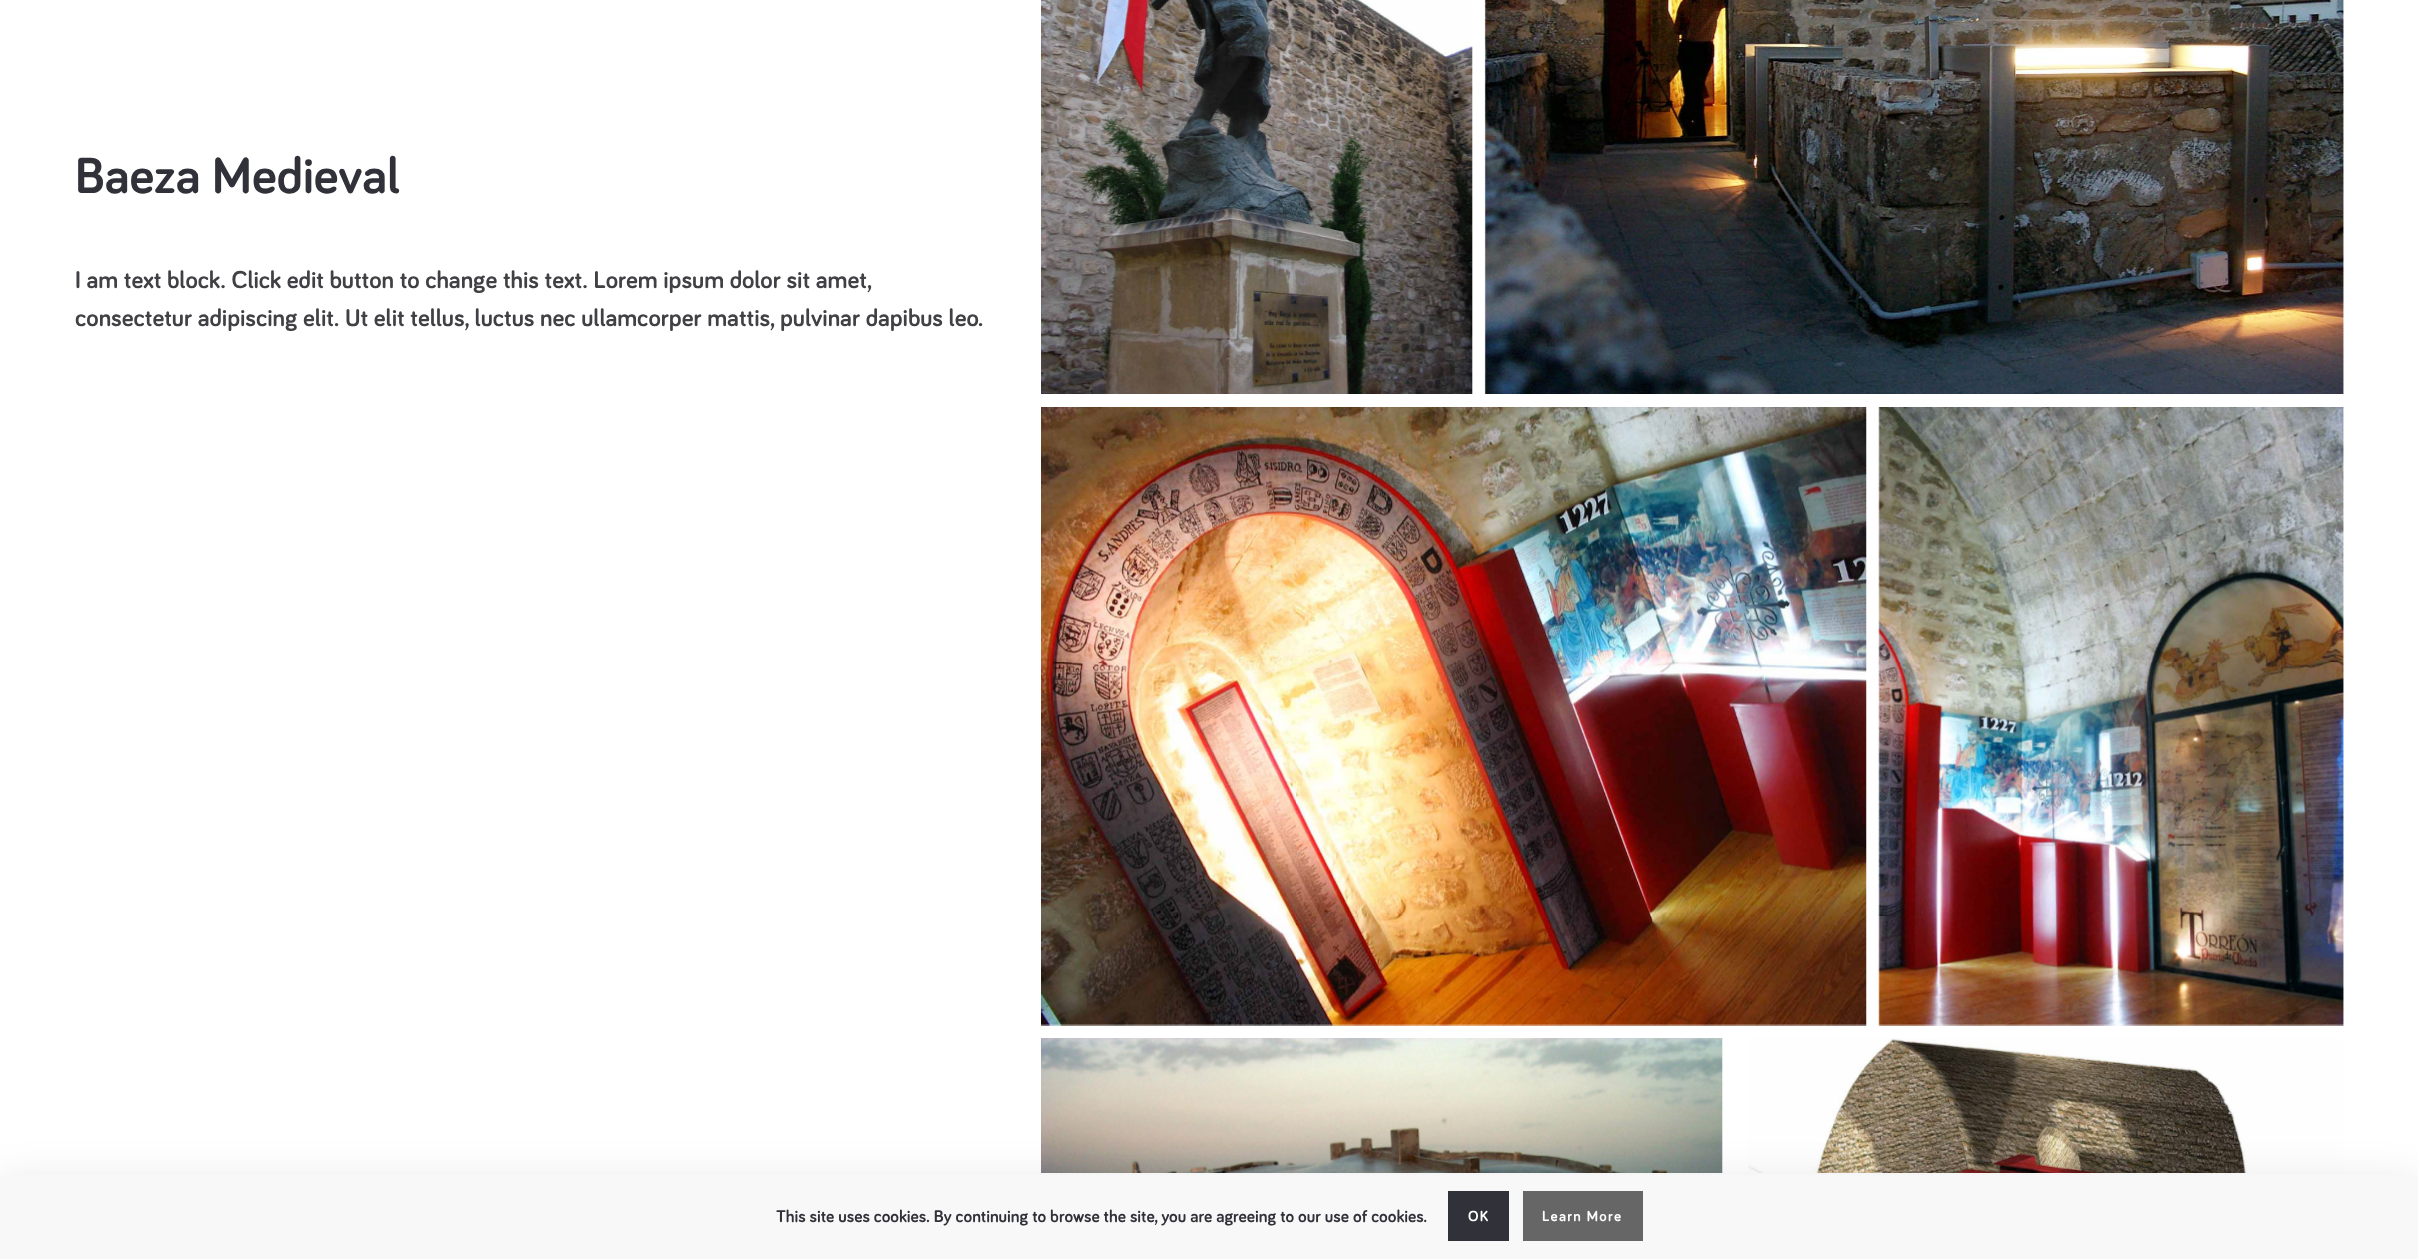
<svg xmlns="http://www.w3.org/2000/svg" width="2418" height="1259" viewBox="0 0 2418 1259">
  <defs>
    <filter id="blur1" x="-50%" y="-200%" width="200%" height="500%"><feGaussianBlur stdDeviation="20.5"/></filter>
  </defs>
  <rect width="100%" height="100%" fill="#ffffff"/>
  <text x="75" y="193" font-family="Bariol" font-size="52.5" font-weight="bold" fill="#313139">Baeza Medieval</text>
  <text x="75" y="288" font-family="Bariol" font-size="25" font-weight="bold" fill="#414145">I am text block. Click edit button to change this text. Lorem ipsum dolor sit amet,</text>
  <text x="75" y="326" font-family="Bariol" font-size="25" font-weight="bold" fill="#414145">consectetur adipiscing elit. Ut elit tellus, luctus nec ullamcorper mattis, pulvinar dapibus leo.</text>
  <image x="1041" y="0" width="432" height="394" href="img1.png"/>
  <image x="1484" y="0" width="860" height="394" href="img2.png"/>
  <image x="1041" y="407" width="826" height="619" href="img3.png"/>
  <image x="1878" y="407" width="466" height="619" href="img4.png"/>
  <image x="1041" y="1038" width="682" height="135" href="img5.png"/>
  <image x="1748" y="1038" width="596" height="135" href="img6.png"/>
  <rect x="0" y="1181" width="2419" height="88" fill="#000000" fill-opacity="0.1" filter="url(#blur1)"/>
  <rect x="0" y="1175" width="2418" height="84" fill="#f8f8f8"/>
  <text x="776" y="1222" font-family="Bariol" font-size="17.5" font-weight="bold" fill="#313139">This site uses cookies. By continuing to browse the site, you are agreeing to our use of cookies.</text>
  <rect x="1448" y="1191" width="61" height="50" fill="#313139"/>
  <text x="1468" y="1221" font-family="Bariol" font-size="15" font-weight="bold" letter-spacing="1.25" fill="#ffffff">OK</text>
  <rect x="1523" y="1191" width="120" height="50" fill="#666666"/>
  <text x="1542" y="1221" font-family="Bariol" font-size="15" font-weight="bold" letter-spacing="1.25" fill="#ffffff">Learn More</text>
</svg>
